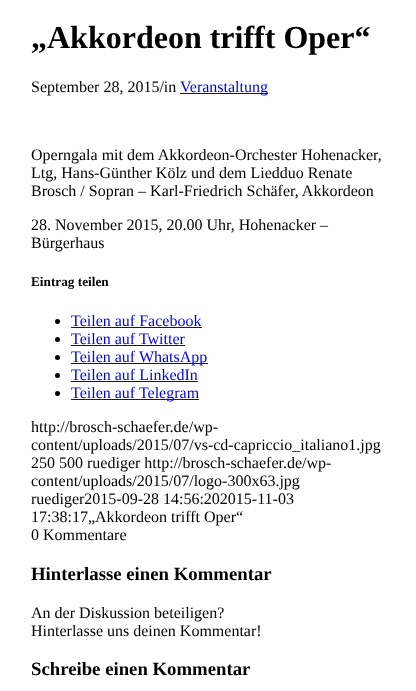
<svg xmlns="http://www.w3.org/2000/svg" width="416" height="691" viewBox="0 0 416 691">
  <rect width="100%" height="100%" fill="#ffffff"/>
  <text x="31" y="48" font-family="Liberation Serif" font-size="32" font-weight="bold" fill="#000000">„Akkordeon trifft Oper“</text>
  <text x="31" y="92" font-family="Liberation Serif" font-size="16" fill="#000000">September 28, 2015/in</text>
  <rect x="180" y="93" width="88" height="1" fill="#0000ee"/>
  <text x="180" y="92" font-family="Liberation Serif" font-size="16" fill="#0000ee">Veranstaltung</text>
  <text x="31" y="160" font-family="Liberation Serif" font-size="16" fill="#000000">Operngala mit dem Akkordeon-Orchester Hohenacker,</text>
  <text x="31" y="178" font-family="Liberation Serif" font-size="16" fill="#000000">Ltg, Hans-Günther Kölz und dem Liedduo Renate</text>
  <text x="31" y="196" font-family="Liberation Serif" font-size="16" fill="#000000">Brosch / Sopran – Karl-Friedrich Schäfer, Akkordeon</text>
  <text x="31" y="230" font-family="Liberation Serif" font-size="16" fill="#000000">28. November 2015, 20.00 Uhr, Hohenacker –</text>
  <text x="31" y="248" font-family="Liberation Serif" font-size="16" fill="#000000">Bürgerhaus</text>
  <text x="31" y="286" font-family="Liberation Serif" font-size="13.25" font-weight="bold" fill="#000000">Eintrag teilen</text>
  <circle cx="57.5" cy="321.5" r="2.5" fill="#000000"/>
  <text x="71" y="326" font-family="Liberation Serif" font-size="16" fill="#0000ee">Teilen auf Facebook</text>
  <rect x="71" y="327" width="131" height="1" fill="#0000ee"/>
  <circle cx="57.5" cy="339.5" r="2.5" fill="#000000"/>
  <text x="71" y="344" font-family="Liberation Serif" font-size="16" fill="#0000ee">Teilen auf Twitter</text>
  <rect x="71" y="345" width="114" height="1" fill="#0000ee"/>
  <circle cx="57.5" cy="357.5" r="2.5" fill="#000000"/>
  <rect x="71" y="363" width="137" height="1" fill="#0000ee"/>
  <text x="71" y="362" font-family="Liberation Serif" font-size="16" fill="#0000ee">Teilen auf WhatsApp</text>
  <circle cx="57.5" cy="375.5" r="2.5" fill="#000000"/>
  <text x="71" y="380" font-family="Liberation Serif" font-size="16" fill="#0000ee">Teilen auf LinkedIn</text>
  <rect x="71" y="381" width="127" height="1" fill="#0000ee"/>
  <circle cx="57.5" cy="393.5" r="2.5" fill="#000000"/>
  <rect x="71" y="399" width="128" height="1" fill="#0000ee"/>
  <text x="71" y="398" font-family="Liberation Serif" font-size="16" fill="#0000ee">Teilen auf Telegram</text>
  <text x="31" y="432" font-family="Liberation Serif" font-size="16" fill="#000000">http://brosch-schaefer.de/wp-</text>
  <text x="31" y="450" font-family="Liberation Serif" font-size="16" fill="#000000">content/uploads/2015/07/vs-cd-capriccio_italiano1.jpg</text>
  <text x="31" y="468" font-family="Liberation Serif" font-size="16" fill="#000000">250 500 ruediger http://brosch-schaefer.de/wp-</text>
  <text x="31" y="486" font-family="Liberation Serif" font-size="16" fill="#000000">content/uploads/2015/07/logo-300x63.jpg</text>
  <text x="31" y="504" font-family="Liberation Serif" font-size="16" fill="#000000">ruediger2015-09-28 14:56:202015-11-03</text>
  <text x="31" y="522" font-family="Liberation Serif" font-size="16" fill="#000000">17:38:17„Akkordeon trifft Oper“</text>
  <text x="31" y="540" font-family="Liberation Serif" font-size="16" fill="#000000">0 Kommentare</text>
  <text x="31" y="580" font-family="Liberation Serif" font-size="18.75" font-weight="bold" fill="#000000">Hinterlasse einen Kommentar</text>
  <text x="31" y="618" font-family="Liberation Serif" font-size="16" fill="#000000">An der Diskussion beteiligen?</text>
  <text x="31" y="636" font-family="Liberation Serif" font-size="16" fill="#000000">Hinterlasse uns deinen Kommentar!</text>
  <text x="31" y="675" font-family="Liberation Serif" font-size="18.75" font-weight="bold" fill="#000000">Schreibe einen Kommentar</text>
</svg>
